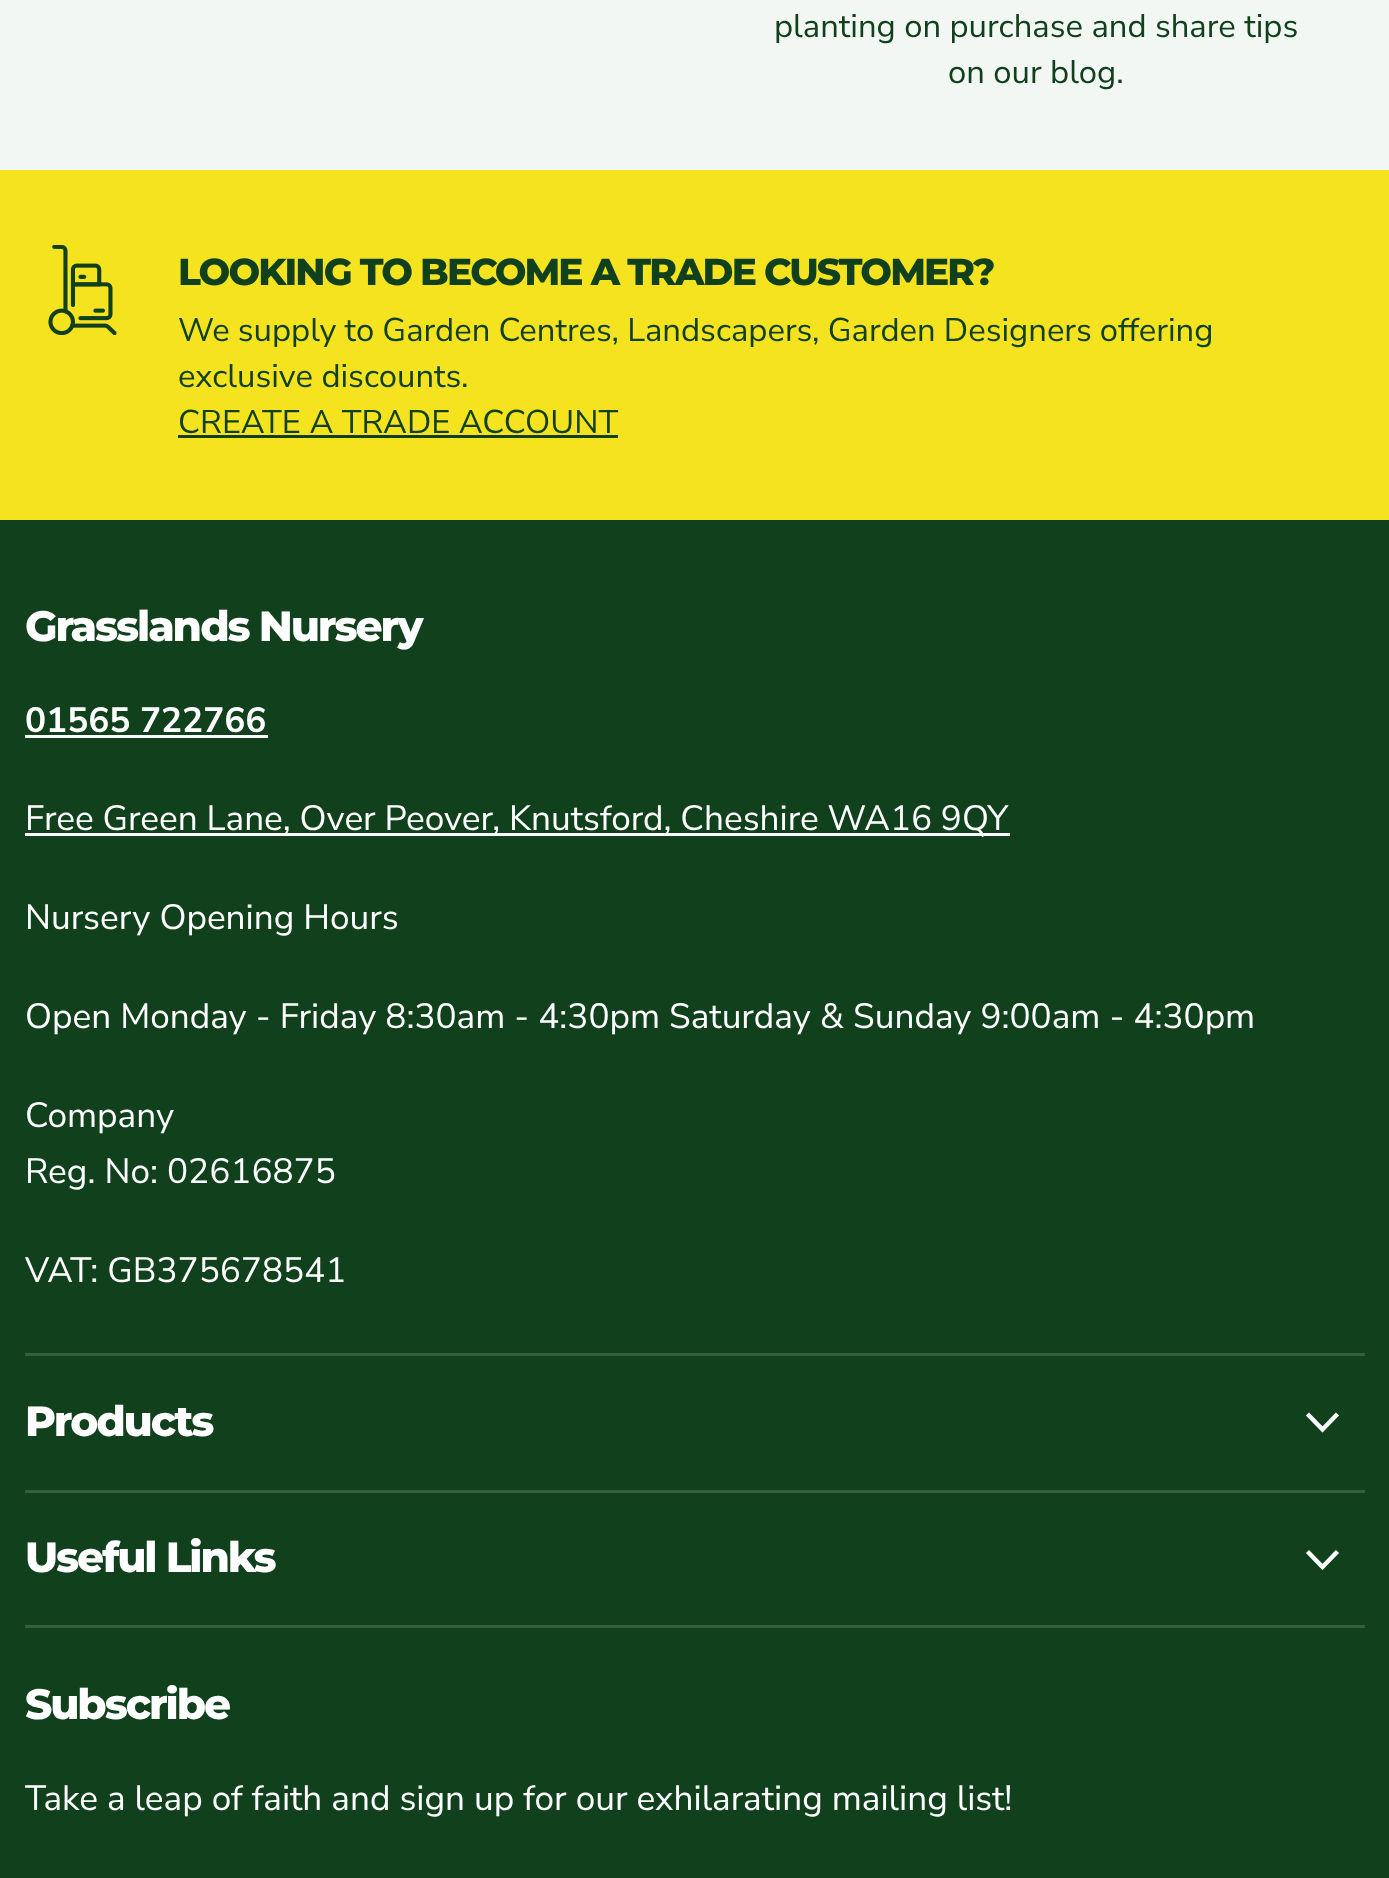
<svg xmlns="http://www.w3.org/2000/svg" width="1389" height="1878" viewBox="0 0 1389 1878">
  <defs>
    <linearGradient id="g1" gradientUnits="userSpaceOnUse" x1="0" y1="345" x2="50" y2="345"><stop offset="0.1" stop-color="#f5e31f"/><stop offset="1" stop-color="#f5e31f" stop-opacity="0"/></linearGradient>
  </defs>
  <rect width="100%" height="100%" fill="#11401d"/>
  <rect x="0" y="0" width="1389" height="170" fill="#f2f7f3"/>
  <text x="774" y="37" font-family="Nunito Sans" font-size="32.8" fill="#11401d">planting on purchase and share tips</text>
  <text x="948" y="83" font-family="Nunito Sans" font-size="32.8" fill="#11401d">on our blog.</text>
  <rect x="5" y="170" width="1384" height="350" fill="#f5e31f"/>
  <image x="48" y="245" width="69" height="90" href="img1.png"/>
  <rect x="0" y="170" width="49" height="350" fill="url(#g1)"/>
  <text x="178" y="285" font-family="Montserrat" font-size="37.5" font-weight="800" letter-spacing="-1.9" fill="#11401d">LOOKING TO BECOME A TRADE CUSTOMER?</text>
  <text x="178" y="341" word-spacing="-0.25" font-family="Nunito Sans" font-size="32.8" fill="#11401d">We supply to Garden Centres, Landscapers, Garden Designers offering</text>
  <text x="178" y="387" font-family="Nunito Sans" font-size="32.8" fill="#11401d">exclusive discounts.</text>
  <text x="178" y="433" font-family="Nunito Sans" font-size="32.8" fill="#11401d">CREATE A TRADE ACCOUNT</text>
  <rect x="178" y="435" width="440" height="3" fill="#11401d"/>
  <rect x="25" y="1353" width="1340" height="3" fill="#355d3f"/>
  <text x="25" y="641" font-family="Montserrat" font-size="42.25" font-weight="800" letter-spacing="-2.1" fill="#ffffff">Grasslands Nursery</text>
  <text x="25" y="732" font-family="Nunito Sans" font-size="35.15" font-weight="bold" fill="#ffffff">01565 722766</text>
  <rect x="25" y="735" width="243" height="3" fill="#ffffff"/>
  <rect x="25" y="833" width="985" height="3" fill="#ffffff"/>
  <text x="25" y="830" word-spacing="-0.25" font-family="Nunito Sans" font-size="35.15" fill="#ffffff">Free Green Lane, Over Peover, Knutsford, Cheshire WA16 9QY</text>
  <text x="25" y="929" font-family="Nunito Sans" font-size="35.15" fill="#ffffff">Nursery Opening Hours</text>
  <text x="25" y="1028" font-family="Nunito Sans" font-size="35.15" fill="#ffffff">Open Monday - Friday 8:30am - 4:30pm Saturday &amp; Sunday 9:00am - 4:30pm</text>
  <text x="25" y="1127" font-family="Nunito Sans" font-size="35.15" fill="#ffffff">Company</text>
  <text x="25" y="1183" font-family="Nunito Sans" font-size="35.15" fill="#ffffff">Reg. No: 02616875</text>
  <text x="25" y="1282" font-family="Nunito Sans" font-size="35.15" fill="#ffffff">VAT: GB375678541</text>
  <rect x="25" y="1490" width="1340" height="3" fill="#355d3f"/>
  <text x="25" y="1436" font-family="Montserrat" font-size="42.25" font-weight="800" letter-spacing="-2.1" fill="#ffffff">Products</text>
  <path d="M1322.5 1429.5L1336 1415.5M1322.5 1429.5L1309 1415.5" fill="none" stroke="#ffffff" stroke-width="4.4" stroke-linecap="square"/>
  <rect x="25" y="1625" width="1340" height="3" fill="#355d3f"/>
  <text x="25" y="1572" font-family="Montserrat" font-size="42.25" font-weight="800" letter-spacing="-2.1" fill="#ffffff">Useful Links</text>
  <path d="M1322.5 1567L1336 1553M1322.5 1567L1309 1553" fill="none" stroke="#ffffff" stroke-width="4.4" stroke-linecap="square"/>
  <text x="25" y="1719" font-family="Montserrat" font-size="42.25" font-weight="800" letter-spacing="-2.1" fill="#ffffff">Subscribe</text>
  <text x="25" y="1810" font-family="Nunito Sans" font-size="35.15" fill="#ffffff">Take a leap of faith and sign up for our exhilarating mailing list!</text>
</svg>
